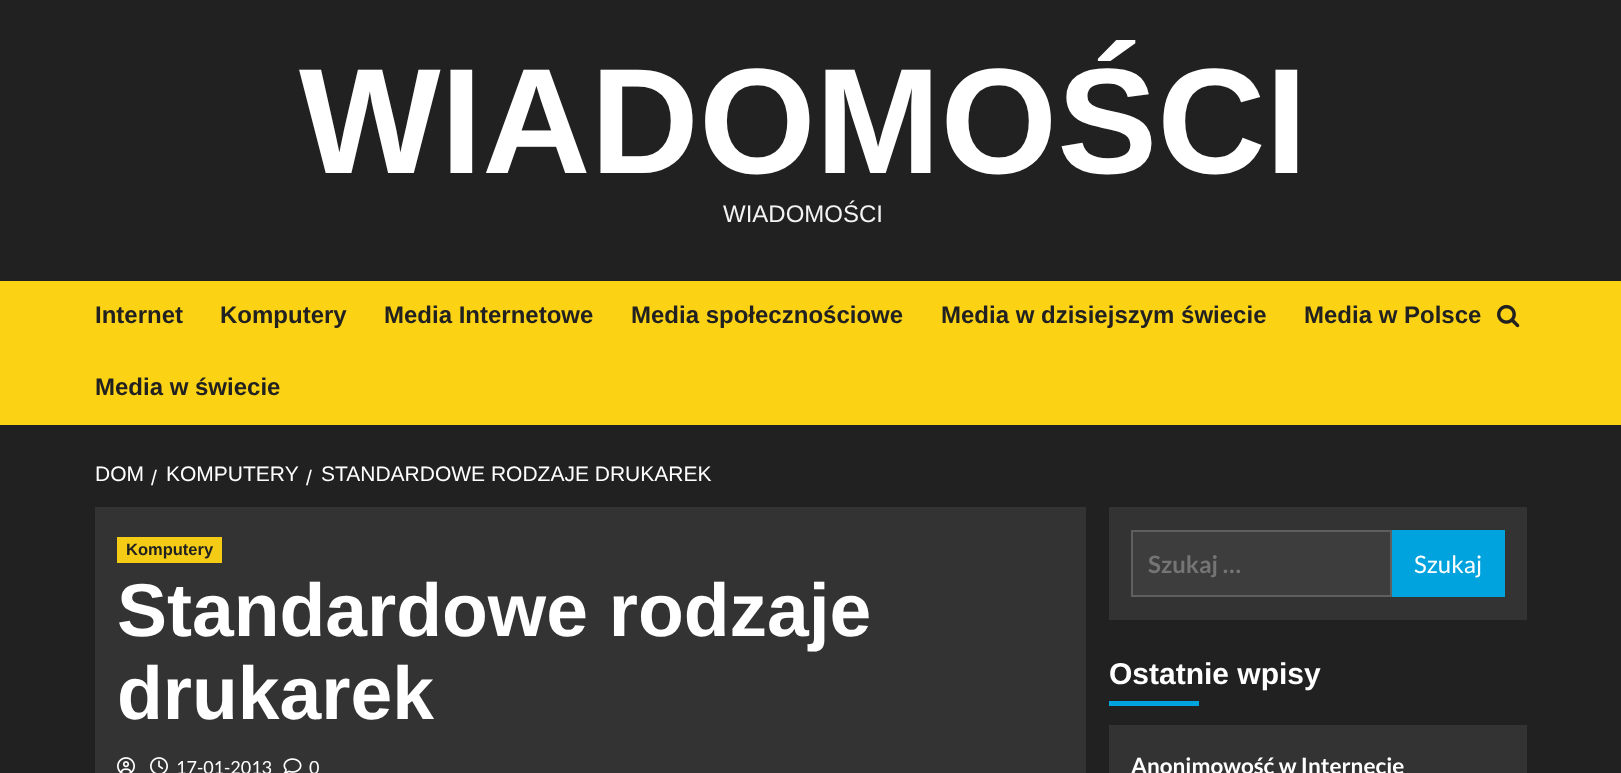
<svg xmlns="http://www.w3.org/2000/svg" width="1621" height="773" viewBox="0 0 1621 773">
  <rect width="100%" height="100%" fill="#212121"/>
  <text x="299" y="173" font-family="Liberation Sans" font-size="150" font-weight="bold" fill="#ffffff">WIADOMOŚCI</text>
  <text x="723" y="222" font-family="Liberation Sans" font-size="24" fill="#f3f3f3">WIADOMOŚCI</text>
  <rect x="0" y="281" width="1621" height="144" fill="#fcd215"/>
  <text x="95" y="323" font-family="Liberation Sans" font-size="24" font-weight="bold" fill="#212121">Internet</text>
  <text x="220" y="323" font-family="Liberation Sans" font-size="24" font-weight="bold" fill="#212121">Komputery</text>
  <text x="384" y="323" font-family="Liberation Sans" font-size="24" font-weight="bold" fill="#212121">Media Internetowe</text>
  <text x="631" y="323" font-family="Liberation Sans" font-size="24" font-weight="bold" fill="#212121">Media społecznościowe</text>
  <text x="941" y="323" font-family="Liberation Sans" font-size="24" font-weight="bold" fill="#212121">Media w dzisiejszym świecie</text>
  <text x="1304" y="323" font-family="Liberation Sans" font-size="24" font-weight="bold" fill="#212121">Media w Polsce</text>
  <text x="95" y="395" font-family="Liberation Sans" font-size="24" font-weight="bold" fill="#212121">Media w świecie</text>
  <image x="1497" y="304" width="23" height="24" href="img1.png"/>
  <text x="95" y="481" font-family="Liberation Sans" font-size="21" fill="#ffffff">DOM</text>
  <text x="151" y="485" font-family="Liberation Sans" font-size="21" fill="#ffffff">/</text>
  <text x="166" y="481" font-family="Liberation Sans" font-size="21" fill="#ffffff">KOMPUTERY</text>
  <text x="306" y="485" font-family="Liberation Sans" font-size="21" fill="#ffffff">/</text>
  <text x="321" y="481" font-family="Liberation Sans" font-size="21" fill="#ffffff">STANDARDOWE RODZAJE DRUKAREK</text>
  <rect x="95" y="507" width="991" height="266" fill="#333333"/>
  <rect x="117" y="537" width="105" height="26" fill="#f4cc16"/>
  <text x="126" y="555" font-family="Liberation Sans" font-size="16.5" font-weight="bold" fill="#212121">Komputery</text>
  <text x="117" y="636" font-family="Liberation Sans" font-size="75" font-weight="bold" fill="#ffffff">Standardowe rodzaje</text>
  <text x="117" y="719" font-family="Liberation Sans" font-size="75" font-weight="bold" fill="#ffffff">drukarek</text>
  <image x="117" y="757" width="18" height="16" href="img2.png"/>
  <image x="150" y="757" width="18" height="16" href="img3.png"/>
  <text x="176" y="774" font-family="Lato" font-size="18" fill="#ffffff">17-01-2013</text>
  <image x="283" y="758" width="19" height="15" href="img4.png"/>
  <text x="309" y="774" font-family="Lato" font-size="18" fill="#ffffff">0</text>
  <rect x="1109" y="507" width="418" height="113" fill="#333333"/>
  <rect x="1132" y="531" width="259" height="65" fill="#3d3d3d" stroke="#5f5f5f" stroke-width="2"/>
  <text x="1148" y="573" font-family="Lato" font-size="24" font-weight="bold" fill="#757575">Szukaj …</text>
  <rect x="1392" y="530" width="113" height="67" fill="#00a3dd"/>
  <text x="1414" y="573" font-family="Lato" font-size="24" fill="#ffffff">Szukaj</text>
  <text x="1109" y="684" font-family="Liberation Sans" font-size="30" font-weight="bold" fill="#ffffff">Ostatnie wpisy</text>
  <rect x="1109" y="701" width="90" height="5" fill="#00a3dd"/>
  <rect x="1109" y="725" width="418" height="48" fill="#333333"/>
  <text x="1131" y="774" font-family="Lato" font-size="22.5" font-weight="bold" fill="#ffffff">Anonimowość w Internecie</text>
</svg>
